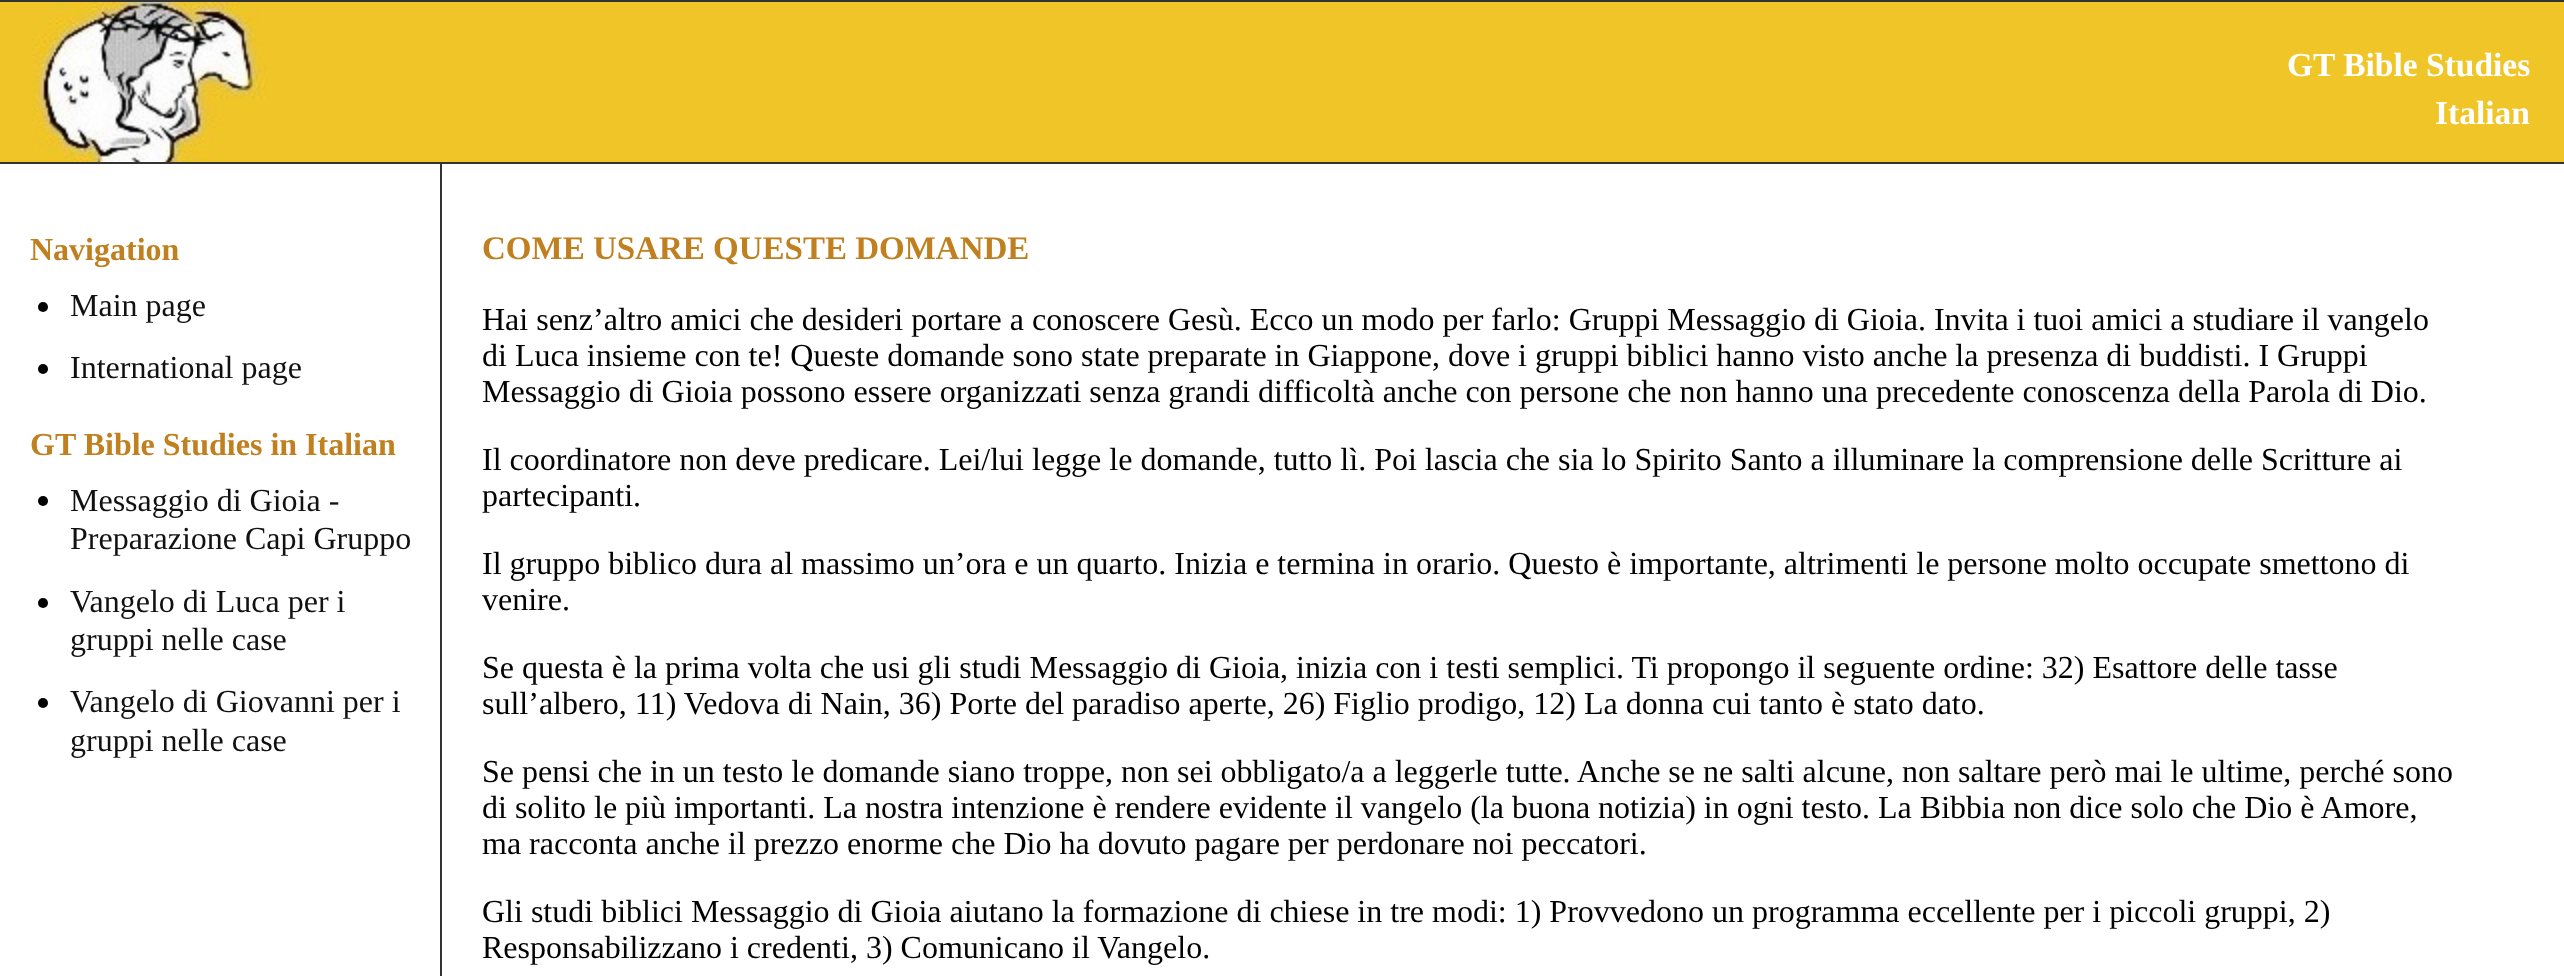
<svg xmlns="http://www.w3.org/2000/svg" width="2564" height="976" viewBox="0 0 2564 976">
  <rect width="100%" height="100%" fill="#ffffff"/>
  <rect x="0" y="2" width="2564" height="160" fill="#f0c528"/>
  <image x="31" y="2" width="237" height="160" href="img1.png"/>
  <rect x="0" y="0" width="2564" height="2" fill="#333333"/>
  <rect x="0" y="162" width="2564" height="2" fill="#333333"/>
  <text x="2287" y="76" font-family="Liberation Serif" font-size="33.5" font-weight="bold" fill="#ffffff">GT Bible Studies</text>
  <text x="2435" y="124" font-family="Liberation Serif" font-size="33.5" font-weight="bold" fill="#ffffff">Italian</text>
  <text x="30" y="260" font-family="Liberation Serif" font-size="32" font-weight="bold" fill="#c08020">Navigation</text>
  <circle cx="43" cy="307" r="5" fill="#000000"/>
  <text x="70" y="316" font-family="Liberation Serif" font-size="32" fill="#111111">Main page</text>
  <circle cx="43" cy="369" r="5" fill="#000000"/>
  <text x="70" y="378" font-family="Liberation Serif" font-size="32" fill="#111111">International page</text>
  <text x="30" y="455" font-family="Liberation Serif" font-size="32" font-weight="bold" fill="#c08020">GT Bible Studies in Italian</text>
  <circle cx="43" cy="501" r="5" fill="#000000"/>
  <text x="70" y="511" font-family="Liberation Serif" font-size="32" fill="#111111">Messaggio di Gioia -</text>
  <text x="70" y="549" font-family="Liberation Serif" font-size="32" fill="#111111">Preparazione Capi Gruppo</text>
  <circle cx="43" cy="603" r="5" fill="#000000"/>
  <text x="70" y="612" font-family="Liberation Serif" font-size="32" fill="#111111">Vangelo di Luca per i</text>
  <text x="70" y="650" font-family="Liberation Serif" font-size="32" fill="#111111">gruppi nelle case</text>
  <circle cx="43" cy="703" r="5" fill="#000000"/>
  <text x="70" y="712" font-family="Liberation Serif" font-size="32" fill="#111111">Vangelo di Giovanni per i</text>
  <text x="70" y="751" font-family="Liberation Serif" font-size="32" fill="#111111">gruppi nelle case</text>
  <rect x="440" y="164" width="2" height="812" fill="#333333"/>
  <text x="482" y="259" font-family="Liberation Serif" font-size="33" font-weight="bold" fill="#c08020">COME USARE QUESTE DOMANDE</text>
  <text x="482" y="330" font-family="Liberation Serif" font-size="32" fill="#000000">Hai senz’altro amici che desideri portare a conoscere Gesù. Ecco un modo per farlo: Gruppi Messaggio di Gioia. Invita i tuoi amici a studiare il vangelo</text>
  <text x="482" y="366" font-family="Liberation Serif" font-size="32" fill="#000000">di Luca insieme con te! Queste domande sono state preparate in Giappone, dove i gruppi biblici hanno visto anche la presenza di buddisti. I Gruppi</text>
  <text x="482" y="402" font-family="Liberation Serif" font-size="32" fill="#000000">Messaggio di Gioia possono essere organizzati senza grandi difficoltà anche con persone che non hanno una precedente conoscenza della Parola di Dio.</text>
  <text x="482" y="470" font-family="Liberation Serif" font-size="32" fill="#000000">Il coordinatore non deve predicare. Lei/lui legge le domande, tutto lì. Poi lascia che sia lo Spirito Santo a illuminare la comprensione delle Scritture ai</text>
  <text x="482" y="506" font-family="Liberation Serif" font-size="32" fill="#000000">partecipanti.</text>
  <text x="482" y="574" font-family="Liberation Serif" font-size="32" fill="#000000">Il gruppo biblico dura al massimo un’ora e un quarto. Inizia e termina in orario. Questo è importante, altrimenti le persone molto occupate smettono di</text>
  <text x="482" y="610" font-family="Liberation Serif" font-size="32" fill="#000000">venire.</text>
  <text x="482" y="678" font-family="Liberation Serif" font-size="32" fill="#000000">Se questa è la prima volta che usi gli studi Messaggio di Gioia, inizia con i testi semplici. Ti propongo il seguente ordine: 32) Esattore delle tasse</text>
  <text x="482" y="714" font-family="Liberation Serif" font-size="32" fill="#000000">sull’albero, 11) Vedova di Nain, 36) Porte del paradiso aperte, 26) Figlio prodigo, 12) La donna cui tanto è stato dato.</text>
  <text x="482" y="782" font-family="Liberation Serif" font-size="32" fill="#000000">Se pensi che in un testo le domande siano troppe, non sei obbligato/a a leggerle tutte. Anche se ne salti alcune, non saltare però mai le ultime, perché sono</text>
  <text x="482" y="818" font-family="Liberation Serif" font-size="32" fill="#000000">di solito le più importanti. La nostra intenzione è rendere evidente il vangelo (la buona notizia) in ogni testo. La Bibbia non dice solo che Dio è Amore,</text>
  <text x="482" y="854" font-family="Liberation Serif" font-size="32" fill="#000000">ma racconta anche il prezzo enorme che Dio ha dovuto pagare per perdonare noi peccatori.</text>
  <text x="482" y="922" font-family="Liberation Serif" font-size="32" fill="#000000">Gli studi biblici Messaggio di Gioia aiutano la formazione di chiese in tre modi: 1) Provvedono un programma eccellente per i piccoli gruppi, 2)</text>
  <text x="482" y="958" font-family="Liberation Serif" font-size="32" fill="#000000">Responsabilizzano i credenti, 3) Comunicano il Vangelo.</text>
</svg>
